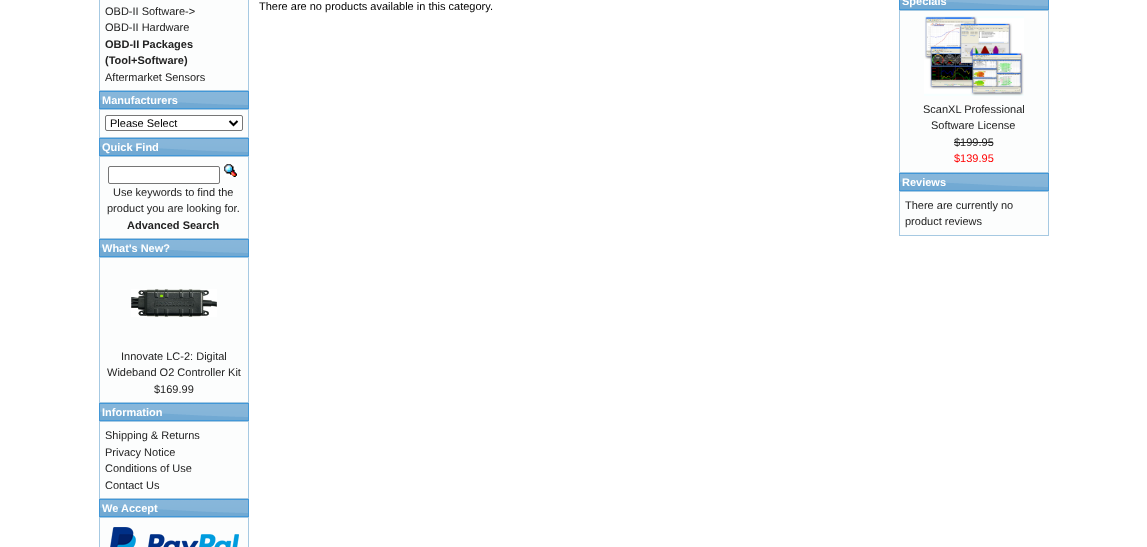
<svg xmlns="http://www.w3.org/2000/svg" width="1147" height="547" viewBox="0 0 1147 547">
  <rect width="100%" height="100%" fill="#ffffff"/>
  <rect x="99.5" y="-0.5" width="149" height="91" fill="#fcfdfd" stroke="#a6c9e2"/>
  <text x="105" y="15" font-family="Liberation Sans" font-size="11" fill="#222222">OBD-II Software-&gt;</text>
  <text x="105" y="31" font-family="Liberation Sans" font-size="11" fill="#222222">OBD-II Hardware</text>
  <text x="105" y="48" font-family="Liberation Sans" font-size="11" font-weight="bold" fill="#222222">OBD-II Packages</text>
  <text x="105" y="64" font-family="Liberation Sans" font-size="11" font-weight="bold" fill="#222222">(Tool+Software)</text>
  <text x="105" y="81" font-family="Liberation Sans" font-size="11" fill="#222222">Aftermarket Sensors</text>
  <image x="100" y="92" width="148" height="16" href="img1.png"/>
  <rect x="99.5" y="91.5" width="149" height="17" fill="none" stroke="#4297d7"/>
  <text x="102" y="104" font-family="Liberation Sans" font-size="11" font-weight="bold" fill="#ffffff">Manufacturers</text>
  <rect x="99.5" y="109.5" width="149" height="28" fill="#fcfdfd" stroke="#a6c9e2"/>
  <rect x="105.5" y="115.5" width="137" height="15" rx="1.5" fill="#ffffff" stroke="#767676"/>
  <path d="M229.5 121L233.5 125L237.5 121" fill="none" stroke="#000000" stroke-width="2"/>
  <text x="110" y="127" font-family="Liberation Sans" font-size="11" fill="#000000">Please Select</text>
  <image x="100" y="139" width="148" height="16" href="img1.png"/>
  <rect x="99.5" y="138.5" width="149" height="17" fill="none" stroke="#4297d7"/>
  <text x="102" y="151" font-family="Liberation Sans" font-size="11" font-weight="bold" fill="#ffffff">Quick Find</text>
  <rect x="99.5" y="156.5" width="149" height="82" fill="#fcfdfd" stroke="#a6c9e2"/>
  <rect x="108.5" y="166.5" width="111" height="17" rx="1.5" fill="#ffffff" stroke="#767676"/>
  <image x="224" y="164" width="13" height="13" href="img2.png"/>
  <text x="113" y="196" font-family="Liberation Sans" font-size="11" fill="#222222">Use keywords to find the</text>
  <text x="107" y="212" font-family="Liberation Sans" font-size="11" fill="#222222">product you are looking for.</text>
  <text x="127" y="229" font-family="Liberation Sans" font-size="11" font-weight="bold" fill="#222222">Advanced Search</text>
  <image x="100" y="240" width="148" height="16" href="img1.png"/>
  <rect x="99.5" y="239.5" width="149" height="17" fill="none" stroke="#4297d7"/>
  <text x="102" y="252" font-family="Liberation Sans" font-size="11" font-weight="bold" fill="#ffffff">What's New?</text>
  <rect x="99.5" y="257.5" width="149" height="145" fill="#fcfdfd" stroke="#a6c9e2"/>
  <image x="131" y="289" width="86" height="28" href="img3.png"/>
  <text x="121" y="360" font-family="Liberation Sans" font-size="11" fill="#222222">Innovate LC-2: Digital</text>
  <text x="107" y="376" font-family="Liberation Sans" font-size="11" fill="#222222">Wideband O2 Controller Kit</text>
  <text x="154" y="393" font-family="Liberation Sans" font-size="11" fill="#222222">$169.99</text>
  <image x="100" y="404" width="148" height="16" href="img1.png"/>
  <rect x="99.5" y="403.5" width="149" height="17" fill="none" stroke="#4297d7"/>
  <text x="102" y="416" font-family="Liberation Sans" font-size="11" font-weight="bold" fill="#ffffff">Information</text>
  <rect x="99.5" y="421.5" width="149" height="77" fill="#fcfdfd" stroke="#a6c9e2"/>
  <text x="105" y="439" font-family="Liberation Sans" font-size="11" fill="#222222">Shipping &amp; Returns</text>
  <text x="105" y="456" font-family="Liberation Sans" font-size="11" fill="#222222">Privacy Notice</text>
  <text x="105" y="472" font-family="Liberation Sans" font-size="11" fill="#222222">Conditions of Use</text>
  <text x="105" y="489" font-family="Liberation Sans" font-size="11" fill="#222222">Contact Us</text>
  <image x="100" y="500" width="148" height="16" href="img1.png"/>
  <rect x="99.5" y="499.5" width="149" height="17" fill="none" stroke="#4297d7"/>
  <text x="102" y="512" font-family="Liberation Sans" font-size="11" font-weight="bold" fill="#ffffff">We Accept</text>
  <rect x="99.5" y="517.5" width="149" height="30" fill="#fcfdfd" stroke="#a6c9e2"/>
  <image x="110" y="527" width="129" height="20" href="img4.png"/>
  <text x="259" y="10" font-family="Liberation Sans" font-size="11" fill="#000000">There are no products available in this category.</text>
  <image x="900" y="0" width="148" height="9" href="img5.png"/>
  <rect x="899.5" y="-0.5" width="149" height="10" fill="none" stroke="#4297d7"/>
  <text x="902" y="5" font-family="Liberation Sans" font-size="11" font-weight="bold" fill="#ffffff">Specials</text>
  <rect x="899.5" y="10.5" width="149" height="162" fill="#fcfdfd" stroke="#a6c9e2"/>
  <image x="924" y="16" width="100" height="80" href="img6.png"/>
  <text x="923" y="113" font-family="Liberation Sans" font-size="11" fill="#222222">ScanXL Professional</text>
  <text x="931" y="129" font-family="Liberation Sans" font-size="11" fill="#222222">Software License</text>
  <text x="954" y="146" font-family="Liberation Sans" font-size="11" fill="#222222">$199.95</text>
  <rect x="954" y="142" width="39" height="1" fill="#222222"/>
  <text x="954" y="162" font-family="Liberation Sans" font-size="11" fill="#ff0000">$139.95</text>
  <image x="900" y="174" width="148" height="16" href="img1.png"/>
  <rect x="899.5" y="173.5" width="149" height="17" fill="none" stroke="#4297d7"/>
  <text x="902" y="186" font-family="Liberation Sans" font-size="11" font-weight="bold" fill="#ffffff">Reviews</text>
  <rect x="899.5" y="191.5" width="149" height="44" fill="#fcfdfd" stroke="#a6c9e2"/>
  <text x="905" y="209" font-family="Liberation Sans" font-size="11" fill="#222222">There are currently no</text>
  <text x="905" y="225" font-family="Liberation Sans" font-size="11" fill="#222222">product reviews</text>
</svg>
